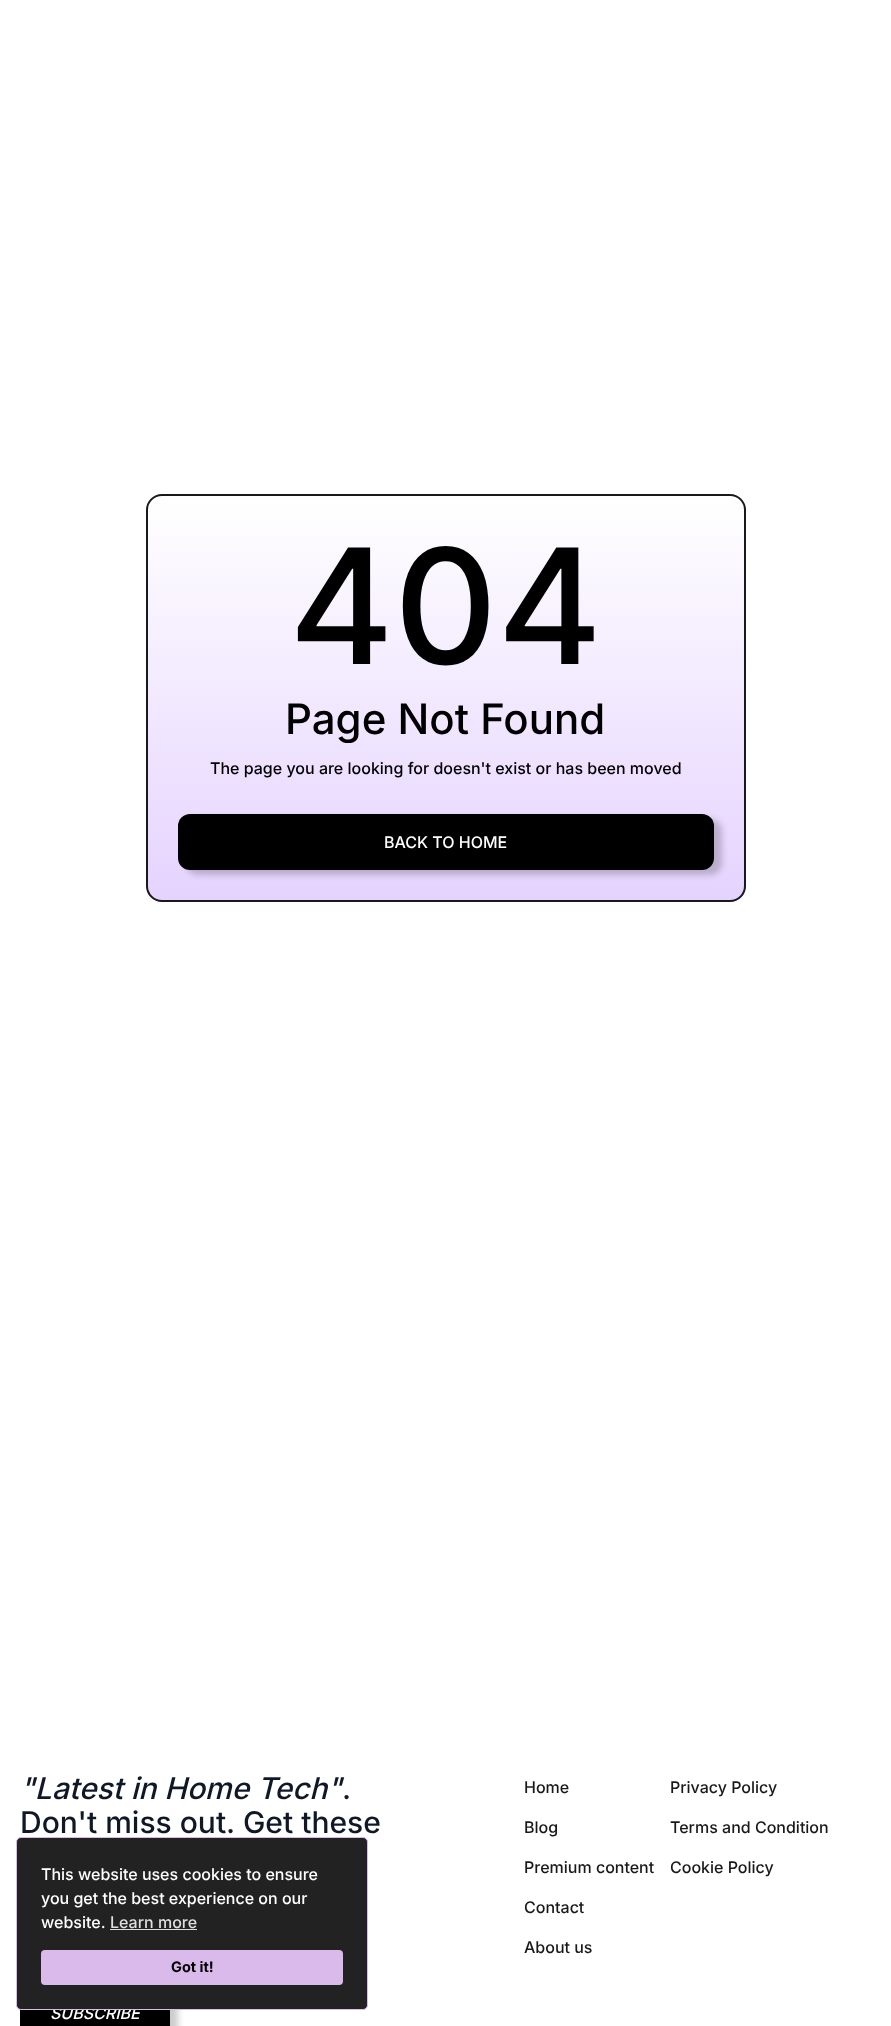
<svg xmlns="http://www.w3.org/2000/svg" width="891" height="2026" viewBox="0 0 891 2026">
  <defs>
    <clipPath id="clip1"><rect x="146" y="494" width="600" height="408" rx="16"/></clipPath>
    <linearGradient id="g1" gradientUnits="userSpaceOnUse" x1="446" y1="496" x2="446" y2="900"><stop offset="0" stop-color="#ffffff"/><stop offset="1" stop-color="#e5d3ff"/></linearGradient>
    <filter id="blur1" x="-50%" y="-200%" width="200%" height="500%"><feGaussianBlur stdDeviation="3"/></filter>
  </defs>
  <rect width="100%" height="100%" fill="#ffffff"/>
  <g clip-path="url(#clip1)">
    <rect x="146" y="496" width="600" height="404" fill="url(#g1)"/>
  </g>
  <rect x="147" y="495" width="598" height="406" rx="15" fill="none" stroke="#18191a" stroke-width="2"/>
  <text x="289" y="664" font-family="Inter" font-size="160" font-weight="500" fill="#000000">404</text>
  <text x="285" y="734" font-family="Inter" font-size="42" font-weight="500" fill="#000000">Page Not Found</text>
  <text x="210" y="774" font-family="Inter" font-size="16" font-weight="500" fill="#000000">The page you are looking for doesn't exist or has been moved</text>
  <rect x="186" y="819" width="536" height="56" rx="12" fill="#000000" fill-opacity="0.2" filter="url(#blur1)"/>
  <rect x="178" y="814" width="536" height="56" rx="12" fill="#000000"/>
  <text x="384" y="848" font-family="Inter" font-size="16" font-weight="500" fill="#ffffff">BACK TO HOME</text>
  <text x="20" y="1799" font-family="Inter" font-size="30" font-weight="500" font-style="italic" fill="#101828">"Latest in Home Tech"</text>
  <text x="342" y="1799" font-family="Inter" font-size="30" font-weight="500" fill="#101828">.</text>
  <text x="20" y="1833" font-family="Inter" font-size="30" font-weight="500" fill="#101828">Don't miss out. Get these</text>
  <rect x="28" y="1990" width="150" height="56" rx="12" fill="#000000" fill-opacity="0.2" filter="url(#blur1)"/>
  <rect x="20" y="2009" width="150" height="17" fill="#000000"/>
  <text x="50" y="2019" font-family="Inter" font-size="16" font-weight="500" font-style="italic" fill="#ffffff">SUBSCRIBE</text>
  <text x="524" y="1793" font-family="Inter" font-size="16" font-weight="500" fill="#18191a">Home</text>
  <text x="524" y="1833" font-family="Inter" font-size="16" font-weight="500" fill="#18191a">Blog</text>
  <text x="524" y="1873" font-family="Inter" font-size="16" font-weight="500" fill="#18191a">Premium content</text>
  <text x="524" y="1913" font-family="Inter" font-size="16" font-weight="500" fill="#18191a">Contact</text>
  <text x="524" y="1953" font-family="Inter" font-size="16" font-weight="500" fill="#18191a">About us</text>
  <text x="670" y="1793" font-family="Inter" font-size="16" font-weight="500" fill="#18191a">Privacy Policy</text>
  <text x="670" y="1833" font-family="Inter" font-size="16" font-weight="500" fill="#18191a">Terms and Condition</text>
  <text x="670" y="1873" font-family="Inter" font-size="16" font-weight="500" fill="#18191a">Cookie Policy</text>
  <rect x="16.5" y="1837.5" width="351" height="172" rx="4.5" fill="#222222" stroke="#d9baea"/>
  <text x="41" y="1880" font-family="Inter" font-size="16" font-weight="500" fill="#ffffff">This website uses cookies to ensure</text>
  <text x="41" y="1904" font-family="Inter" font-size="16" font-weight="500" fill="#ffffff">you get the best experience on our</text>
  <text x="41" y="1928" font-family="Inter" font-size="16" font-weight="500" fill="#ffffff">website.</text>
  <text x="110" y="1928" font-family="Inter" font-size="16" font-weight="500" fill="#dedede">Learn more</text>
  <rect x="110" y="1929" width="87" height="1" fill="#dedede"/>
  <rect x="41" y="1950" width="302" height="35" rx="4" fill="#d9baea"/>
  <text x="171" y="1972" font-family="Inter" font-size="14.5" font-weight="bold" fill="#000000">Got it!</text>
</svg>
